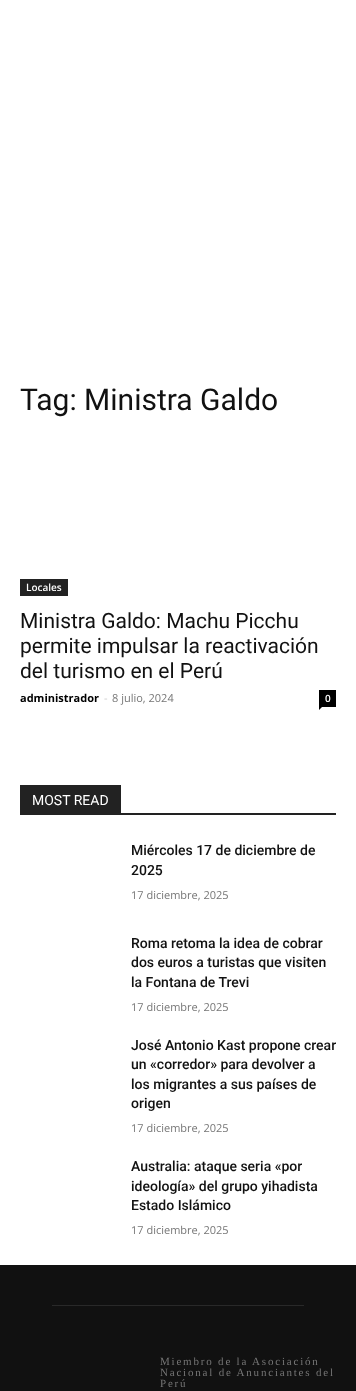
<svg xmlns="http://www.w3.org/2000/svg" width="356" height="1391" viewBox="0 0 356 1391">
  <rect width="100%" height="100%" fill="#ffffff"/>
  <text x="20" y="410" font-family="Roboto" font-size="30" fill="#111111">Tag: Ministra Galdo</text>
  <rect x="20" y="579" width="48" height="17" fill="#222222"/>
  <text x="26" y="591" font-family="Open Sans" font-size="10" font-weight="600" fill="#ffffff">Locales</text>
  <text x="20" y="628" font-family="Roboto" font-size="21" fill="#111111">Ministra Galdo: Machu Picchu</text>
  <text x="20" y="653" font-family="Roboto" font-size="21" fill="#111111">permite impulsar la reactivación</text>
  <text x="20" y="678" font-family="Roboto" font-size="21" fill="#111111">del turismo en el Perú</text>
  <text x="20" y="702" font-family="Open Sans" font-size="11" font-weight="bold" fill="#000000">administrador</text>
  <text x="104" y="702" font-family="Open Sans" font-size="11" fill="#cccccc">-</text>
  <text x="112" y="702" font-family="Open Sans" font-size="11" fill="#767676">8 julio, 2024</text>
  <rect x="319" y="690" width="17" height="17" fill="#000000"/>
  <text x="325" y="702" font-family="Open Sans" font-size="10" font-weight="600" fill="#ffffff">0</text>
  <path d="M319 707H322L319 710Z" fill="#000000"/>
  <rect x="20" y="813" width="316" height="2" fill="#222222"/>
  <rect x="20" y="785" width="101" height="28" fill="#222222"/>
  <text x="32" y="805" font-family="Roboto" font-size="14" fill="#ffffff">MOST READ</text>
  <text x="131" y="855" font-family="Roboto" font-size="14" font-weight="500" fill="#111111">Miércoles 17 de diciembre de</text>
  <text x="131" y="875" font-family="Roboto" font-size="14" font-weight="500" fill="#111111">2025</text>
  <text x="131" y="899" font-family="Open Sans" font-size="11" fill="#767676">17 diciembre, 2025</text>
  <text x="131" y="948" font-family="Roboto" font-size="14" font-weight="500" fill="#111111">Roma retoma la idea de cobrar</text>
  <text x="131" y="967" font-family="Roboto" font-size="14" font-weight="500" fill="#111111">dos euros a turistas que visiten</text>
  <text x="131" y="987" font-family="Roboto" font-size="14" font-weight="500" fill="#111111">la Fontana de Trevi</text>
  <text x="131" y="1011" font-family="Open Sans" font-size="11" fill="#767676">17 diciembre, 2025</text>
  <text x="131" y="1050" font-family="Roboto" font-size="14" font-weight="500" fill="#111111">José Antonio Kast propone crear</text>
  <text x="131" y="1069" font-family="Roboto" font-size="14" font-weight="500" fill="#111111">un «corredor» para devolver a</text>
  <text x="131" y="1089" font-family="Roboto" font-size="14" font-weight="500" fill="#111111">los migrantes a sus países de</text>
  <text x="131" y="1108" font-family="Roboto" font-size="14" font-weight="500" fill="#111111">origen</text>
  <text x="131" y="1132" font-family="Open Sans" font-size="11" fill="#767676">17 diciembre, 2025</text>
  <text x="131" y="1171" font-family="Roboto" font-size="14" font-weight="500" fill="#111111">Australia: ataque seria «por</text>
  <text x="131" y="1191" font-family="Roboto" font-size="14" font-weight="500" fill="#111111">ideología» del grupo yihadista</text>
  <text x="131" y="1210" font-family="Roboto" font-size="14" font-weight="500" fill="#111111">Estado Islámico</text>
  <text x="131" y="1234" font-family="Open Sans" font-size="11" fill="#767676">17 diciembre, 2025</text>
  <rect x="0" y="1265" width="356" height="126" fill="#111111"/>
  <rect x="52" y="1305" width="252" height="1" fill="#292929"/>
  <text x="160" y="1365" font-family="Liberation Serif" font-size="11" letter-spacing="1.8" fill="#767676">Miembro de la Asociación</text>
  <text x="160" y="1376" font-family="Liberation Serif" font-size="11" letter-spacing="1.8" fill="#767676">Nacional de Anunciantes del</text>
  <text x="160" y="1387" font-family="Liberation Serif" font-size="11" letter-spacing="1.8" fill="#767676">Perú</text>
</svg>
